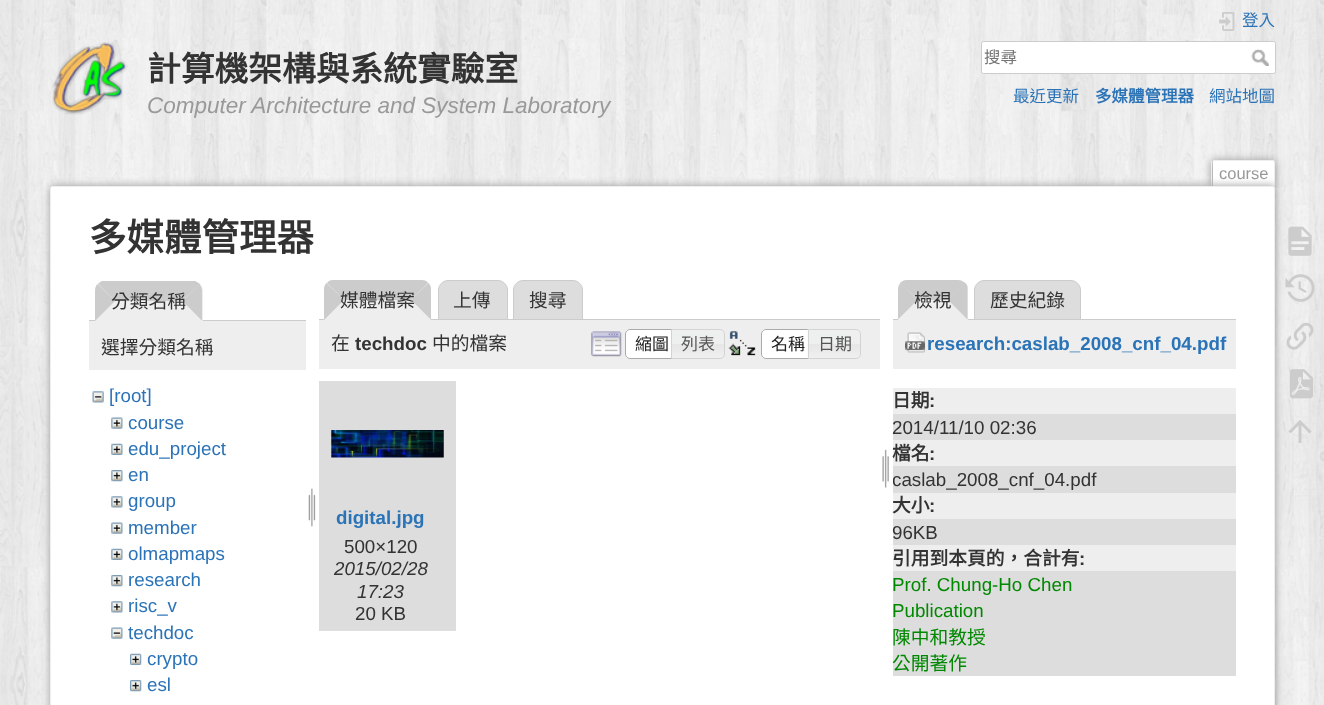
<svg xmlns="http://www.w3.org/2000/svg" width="1324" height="705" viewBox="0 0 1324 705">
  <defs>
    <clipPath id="clip1"><rect x="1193" y="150" width="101" height="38"/></clipPath>
    <filter id="blur1" x="-50%" y="-200%" width="200%" height="500%"><feGaussianBlur stdDeviation="4"/></filter>
    <filter id="blur2" x="-50%" y="-200%" width="200%" height="500%"><feGaussianBlur stdDeviation="4.5"/></filter>
    <clipPath id="clip2"><rect x="893" y="381" width="343" height="295"/></clipPath>
  </defs>
  <rect width="100%" height="100%" fill="#ffffff"/>
  <image x="0" y="0" width="1324" height="705" href="img1.png"/>
  <image x="50" y="42" width="78" height="73" href="img2.png"/>
  <text x="147" y="81" font-family="Noto Sans CJK TC" font-size="33.75" font-weight="bold" fill="#333333">計算機架構與系統實驗室</text>
  <text x="147" y="113" font-family="Liberation Sans" font-size="22.5" font-style="italic" fill="#999999">Computer Architecture and System Laboratory</text>
  <image x="1219" y="12" width="16" height="19" href="img3.png"/>
  <text x="1242" y="26" font-family="Noto Sans CJK TC" font-size="16.5" fill="#2b73b7">登入</text>
  <rect x="981.5" y="41.5" width="294" height="32" rx="2" fill="#ffffff" stroke="#cccccc"/>
  <text x="984" y="63" font-family="Noto Sans CJK TC" font-size="16.5" fill="#757575">搜尋</text>
  <image x="1251" y="49" width="18" height="17" href="img4.png"/>
  <text x="1013" y="102" font-family="Noto Sans CJK TC" font-size="16.5" fill="#2b73b7">最近更新</text>
  <text x="1095" y="102" font-family="Noto Sans CJK TC" font-size="16.5" font-weight="bold" fill="#2b73b7">多媒體管理器</text>
  <text x="1209" y="102" font-family="Noto Sans CJK TC" font-size="16.5" fill="#2b73b7">網站地圖</text>
  <g clip-path="url(#clip1)">
    <rect x="1211" y="160" width="64" height="28" rx="2.5" fill="#999999" filter="url(#blur1)"/>
  </g>
  <path d="M1214 161H1273C1273.5 161 1274 161.5 1274 162V188H1213V162C1213 161.5 1213.5 161 1214 161Z" fill="#ffffff"/>
  <rect x="1213" y="160" width="61" height="1" fill="#eeeeee"/>
  <rect x="1274" y="161" width="1" height="27" fill="#eeeeee"/>
  <rect x="1211" y="161" width="1" height="27" fill="#eeeeee"/>
  <text x="1219" y="179" font-family="Liberation Sans" font-size="16.5" fill="#999999">course</text>
  <rect x="50" y="186" width="1225" height="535" rx="2.5" fill="#999999" filter="url(#blur2)"/>
  <rect x="50.5" y="186.5" width="1224" height="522" rx="2" fill="#ffffff" stroke="#eeeeee"/>
  <text x="89" y="251" font-family="Noto Sans CJK TC" font-size="37.5" font-weight="bold" fill="#333333">多媒體管理器</text>
  <rect x="89" y="320" width="217" height="1" fill="#cccccc"/>
  <path d="M105 281H193C198.5 281 203 285.5 203 291V321H95V291C95 285.5 99.5 281 105 281Z" fill="#eeeeee"/>
  <path d="M195 281H102C100 282 99 283 98 284L115 301H182L200 284C198 283 197 282 195 281Z" fill="#cccccc"/>
  <path d="M199.5 284L182.5 301L202 321V291C202 288 201 286 199.5 284Z" fill="#cccccc"/>
  <path d="M202 321L182 301H115L95 321Z" fill="#eeeeee"/>
  <path d="M95 321L115 301L97.5 284C96 285.5 95 288 95 291Z" fill="#cccccc"/>
  <text x="111" y="308" font-family="Noto Sans CJK TC" font-size="18.75" fill="#333333">分類名稱</text>
  <rect x="89" y="321" width="217" height="49" fill="#eeeeee"/>
  <text x="101" y="354" font-family="Noto Sans CJK TC" font-size="18.75" fill="#333333">選擇分類名稱</text>
  <image x="92" y="391" width="12" height="12" href="img5.png"/>
  <text x="109" y="402" font-family="Liberation Sans" font-size="18.75" fill="#2b73b7">[root]</text>
  <image x="111" y="417" width="12" height="12" href="img6.png"/>
  <text x="128" y="429" font-family="Liberation Sans" font-size="18.75" fill="#2b73b7">course</text>
  <image x="111" y="443" width="12" height="12" href="img7.png"/>
  <text x="128" y="455" font-family="Liberation Sans" font-size="18.75" fill="#2b73b7">edu_project</text>
  <image x="111" y="470" width="12" height="12" href="img8.png"/>
  <text x="128" y="481" font-family="Liberation Sans" font-size="18.75" fill="#2b73b7">en</text>
  <image x="111" y="496" width="12" height="12" href="img9.png"/>
  <text x="128" y="507" font-family="Liberation Sans" font-size="18.75" fill="#2b73b7">group</text>
  <image x="111" y="522" width="12" height="12" href="img6.png"/>
  <text x="128" y="534" font-family="Liberation Sans" font-size="18.75" fill="#2b73b7">member</text>
  <image x="111" y="548" width="12" height="12" href="img7.png"/>
  <text x="128" y="560" font-family="Liberation Sans" font-size="18.75" fill="#2b73b7">olmapmaps</text>
  <image x="111" y="575" width="12" height="12" href="img8.png"/>
  <text x="128" y="586" font-family="Liberation Sans" font-size="18.75" fill="#2b73b7">research</text>
  <image x="111" y="601" width="12" height="12" href="img9.png"/>
  <text x="128" y="612" font-family="Liberation Sans" font-size="18.75" fill="#2b73b7">risc_v</text>
  <image x="111" y="627" width="12" height="12" href="img10.png"/>
  <text x="128" y="639" font-family="Liberation Sans" font-size="18.75" fill="#2b73b7">techdoc</text>
  <image x="130" y="653" width="12" height="12" href="img11.png"/>
  <text x="147" y="665" font-family="Liberation Sans" font-size="18.75" fill="#2b73b7">crypto</text>
  <image x="130" y="680" width="12" height="12" href="img12.png"/>
  <text x="147" y="691" font-family="Liberation Sans" font-size="18.75" fill="#2b73b7">esl</text>
  <image x="308" y="488" width="8" height="39" href="img13.png"/>
  <path d="M448 280.5H498C503 280.5 507.5 285 507.5 290V319.5H438.5V290C438.5 285 443 280.5 448 280.5Z" fill="#dddddd" stroke="#cccccc"/>
  <path d="M523 280.5H573C578 280.5 582.5 285 582.5 290V319.5H513.5V290C513.5 285 518 280.5 523 280.5Z" fill="#dddddd" stroke="#cccccc"/>
  <rect x="319" y="319" width="561" height="1" fill="#cccccc"/>
  <path d="M334 280H421C426.5 280 431 284.5 431 290V320H324V290C324 284.5 328.5 280 334 280Z" fill="#eeeeee"/>
  <path d="M333 280H422C425 280 427 281 428 283L411 300H344L327 283C328 281 330 280 333 280Z" fill="#cccccc"/>
  <path d="M428.5 283L411 300L431 320V289C431 286.5 430 284.5 428.5 283Z" fill="#cccccc"/>
  <path d="M431 320L411 300H344L324 320Z" fill="#eeeeee"/>
  <path d="M326.5 283C325 284.5 324 286.5 324 289V320L344 300Z" fill="#cccccc"/>
  <text x="340" y="307" font-family="Noto Sans CJK TC" font-size="18.75" fill="#333333">媒體檔案</text>
  <text x="453" y="307" font-family="Noto Sans CJK TC" font-size="18.75" fill="#333333">上傳</text>
  <text x="529" y="307" font-family="Noto Sans CJK TC" font-size="18.75" fill="#333333">搜尋</text>
  <rect x="319" y="320" width="561" height="49" fill="#eeeeee"/>
  <text x="331" y="350" font-family="Noto Sans CJK TC" font-size="18.75" fill="#333333">在</text>
  <text x="355" y="350" font-family="Liberation Sans" font-size="18.75" font-weight="bold" fill="#333333">techdoc</text>
  <text x="432" y="350" font-family="Noto Sans CJK TC" font-size="18.75" fill="#333333">中的檔案</text>
  <image x="591" y="331" width="31" height="26" href="img14.png"/>
  <path d="M630 329H679V359H630C627 359 625 357 625 354V334C625 331 627 329 630 329Z" fill="#ffffff"/>
  <image x="625" y="329" width="4" height="3" href="img15.png"/>
  <path d="M630 329.5H678.5V358.5H630C627.5 358.5 625.5 356.5 625.5 354V334C625.5 331.5 627.5 329.5 630 329.5Z" fill="none" stroke="#aaaaaa"/>
  <text x="635" y="350" font-family="Noto Sans CJK TC" font-size="17" fill="#212121">縮圖</text>
  <image x="672" y="329" width="53" height="30" href="img16.png"/>
  <path d="M671.5 329.5H720C722.5 329.5 724.5 331.5 724.5 334V354C724.5 356.5 722.5 358.5 720 358.5H671.5Z" fill="none" stroke="#d3d3d3"/>
  <text x="681" y="350" font-family="Noto Sans CJK TC" font-size="17" fill="#555555">列表</text>
  <image x="728" y="331" width="28" height="25" href="img17.png"/>
  <path d="M766 329H815V359H766C763 359 761 357 761 354V334C761 331 763 329 766 329Z" fill="#ffffff"/>
  <image x="762" y="329" width="3" height="2" href="img18.png"/>
  <path d="M766 329.5H814.5V358.5H766C763.5 358.5 761.5 356.5 761.5 354V334C761.5 331.5 763.5 329.5 766 329.5Z" fill="none" stroke="#aaaaaa"/>
  <text x="771" y="350" font-family="Noto Sans CJK TC" font-size="17" fill="#212121">名稱</text>
  <image x="807" y="329" width="54" height="30" href="img19.png"/>
  <path d="M808.5 329.5H856C858.5 329.5 860.5 331.5 860.5 334V354C860.5 356.5 858.5 358.5 856 358.5H808.5Z" fill="none" stroke="#d3d3d3"/>
  <text x="818" y="350" font-family="Noto Sans CJK TC" font-size="17" fill="#555555">日期</text>
  <image x="882" y="449" width="7" height="39" href="img20.png"/>
  <rect x="319" y="381" width="137" height="250" fill="#dddddd"/>
  <image x="331" y="430" width="113" height="28" href="img21.png"/>
  <text x="336" y="524" font-family="Liberation Sans" font-size="18.75" font-weight="bold" fill="#2b73b7">digital.jpg</text>
  <text x="344" y="553" font-family="Liberation Sans" font-size="18.75" fill="#333333">500×120</text>
  <text x="334" y="575" font-family="Liberation Sans" font-size="18.75" font-style="italic" fill="#333333">2015/02/28</text>
  <text x="357" y="598" font-family="Liberation Sans" font-size="18.75" font-style="italic" fill="#333333">17:23</text>
  <text x="355" y="620" font-family="Liberation Sans" font-size="18.75" fill="#333333">20 KB</text>
  <path d="M984 280.5H1071C1076 280.5 1080.5 285 1080.5 290V319.5H974.5V290C974.5 285 979 280.5 984 280.5Z" fill="#dddddd" stroke="#cccccc"/>
  <rect x="893" y="319" width="343" height="1" fill="#cccccc"/>
  <path d="M908 280H958C963.5 280 968 284.5 968 290V320H898V290C898 284.5 902.5 280 908 280Z" fill="#eeeeee"/>
  <path d="M907 280H958C960 280 963 281 965 283L948 300H918L900 283C902 281 904 280 907 280Z" fill="#cccccc"/>
  <path d="M965 282.5L947.5 300L967.5 320V286.5C967 285 966 283.5 965 282.5Z" fill="#cccccc"/>
  <path d="M968 320L948 300H918L898 320Z" fill="#eeeeee"/>
  <path d="M900.5 283C899 284.5 898 286.5 898 289V319.5L917.5 300Z" fill="#cccccc"/>
  <text x="914" y="307" font-family="Noto Sans CJK TC" font-size="18.75" fill="#333333">檢視</text>
  <text x="990" y="307" font-family="Noto Sans CJK TC" font-size="18.75" fill="#333333">歷史紀錄</text>
  <rect x="893" y="320" width="343" height="49" fill="#eeeeee"/>
  <image x="905" y="332" width="20" height="21" href="img22.png"/>
  <text x="927" y="350" font-family="Liberation Sans" font-size="18.75" font-weight="bold" fill="#2b73b7">research:caslab_2008_cnf_04.pdf</text>
  <rect x="893" y="388" width="343" height="26" fill="#eeeeee"/>
  <text x="892" y="407" font-family="Noto Sans CJK TC" font-size="18.75" font-weight="bold" fill="#333333">日期</text>
  <text x="929" y="407" font-family="Liberation Sans" font-size="18.75" font-weight="bold" fill="#333333">:</text>
  <rect x="893" y="414" width="343" height="26" fill="#dddddd"/>
  <text x="892" y="434" font-family="Liberation Sans" font-size="18.75" fill="#333333">2014/11/10 02:36</text>
  <rect x="893" y="440" width="343" height="26" fill="#eeeeee"/>
  <text x="892" y="460" font-family="Noto Sans CJK TC" font-size="18.75" font-weight="bold" fill="#333333">檔名</text>
  <text x="929" y="460" font-family="Liberation Sans" font-size="18.75" font-weight="bold" fill="#333333">:</text>
  <rect x="893" y="466" width="343" height="27" fill="#dddddd"/>
  <g clip-path="url(#clip2)">
    <text x="892" y="486" font-family="Liberation Sans" font-size="18.75" fill="#333333">caslab_2008_cnf_04.pdf</text>
  </g>
  <rect x="893" y="493" width="343" height="26" fill="#eeeeee"/>
  <text x="892" y="512" font-family="Noto Sans CJK TC" font-size="18.75" font-weight="bold" fill="#333333">大小</text>
  <text x="929" y="512" font-family="Liberation Sans" font-size="18.75" font-weight="bold" fill="#333333">:</text>
  <rect x="893" y="519" width="343" height="26" fill="#dddddd"/>
  <text x="892" y="539" font-family="Liberation Sans" font-size="18.75" fill="#333333">96KB</text>
  <rect x="893" y="545" width="343" height="26" fill="#eeeeee"/>
  <text x="892" y="565" font-family="Noto Sans CJK TC" font-size="18.75" font-weight="bold" fill="#333333">引用到本頁的，合計有</text>
  <text x="1079" y="565" font-family="Liberation Sans" font-size="18.75" font-weight="bold" fill="#333333">:</text>
  <rect x="893" y="571" width="343" height="105" fill="#dddddd"/>
  <text x="892" y="591" font-family="Liberation Sans" font-size="18.75" fill="#008800">Prof. Chung-Ho Chen</text>
  <text x="892" y="617" font-family="Liberation Sans" font-size="18.75" fill="#008800">Publication</text>
  <text x="892" y="644" font-family="Noto Sans CJK TC" font-size="18.75" fill="#008800">陳中和教授</text>
  <text x="892" y="670" font-family="Noto Sans CJK TC" font-size="18.75" fill="#008800">公開著作</text>
  <image x="1288" y="226" width="24" height="30" href="img23.png"/>
  <image x="1285" y="274" width="30" height="28" href="img24.png"/>
  <image x="1286" y="322" width="28" height="28" href="img25.png"/>
  <image x="1289" y="369" width="24" height="30" href="img26.png"/>
  <image x="1288" y="420" width="24" height="23" href="img27.png"/>
</svg>
